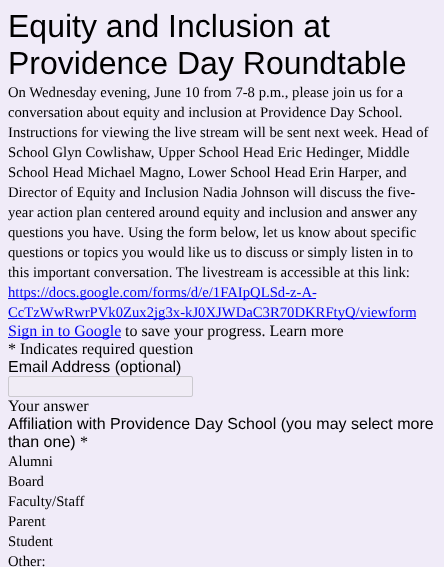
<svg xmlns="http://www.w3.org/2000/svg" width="444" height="567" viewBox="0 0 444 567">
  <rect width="100%" height="100%" fill="#f0ebf8"/>
  <text x="8" y="37" font-family="Liberation Sans" font-size="32" fill="#000000">Equity and Inclusion at</text>
  <text x="8" y="74" font-family="Liberation Sans" font-size="32" fill="#000000">Providence Day Roundtable</text>
  <text x="8" y="97" font-family="Liberation Serif" font-size="14.7" fill="#000000">On Wednesday evening, June 10 from 7-8 p.m., please join us for a</text>
  <text x="8" y="117" font-family="Liberation Serif" font-size="14.7" fill="#000000">conversation about equity and inclusion at Providence Day School.</text>
  <text x="8" y="137" font-family="Liberation Serif" font-size="14.7" fill="#000000">Instructions for viewing the live stream will be sent next week. Head of</text>
  <text x="8" y="157" font-family="Liberation Serif" font-size="14.7" fill="#000000">School Glyn Cowlishaw, Upper School Head Eric Hedinger, Middle</text>
  <text x="8" y="177" font-family="Liberation Serif" font-size="14.7" fill="#000000">School Head Michael Magno, Lower School Head Erin Harper, and</text>
  <text x="8" y="197" font-family="Liberation Serif" font-size="14.7" fill="#000000">Director of Equity and Inclusion Nadia Johnson will discuss the five-</text>
  <text x="8" y="217" font-family="Liberation Serif" font-size="14.7" fill="#000000">year action plan centered around equity and inclusion and answer any</text>
  <text x="8" y="237" font-family="Liberation Serif" font-size="14.7" fill="#000000">questions you have. Using the form below, let us know about specific</text>
  <text x="8" y="257" font-family="Liberation Serif" font-size="14.7" fill="#000000">questions or topics you would like us to discuss or simply listen in to</text>
  <text x="8" y="277" font-family="Liberation Serif" font-size="14.7" fill="#000000">this important conversation. The livestream is accessible at this link:</text>
  <rect x="8" y="298" width="308" height="1" fill="#0000ee"/>
  <text x="8" y="297" font-family="Liberation Serif" font-size="14.7" fill="#0000ee">https://docs.google.com/forms/d/e/1FAIpQLSd-z-A-</text>
  <rect x="8" y="318" width="408" height="1" fill="#0000ee"/>
  <text x="8" y="317" font-family="Liberation Serif" font-size="14.7" fill="#0000ee">CcTzWwRwrPVk0Zux2jg3x-kJ0XJWDaC3R70DKRFtyQ/viewform</text>
  <rect x="8" y="337" width="113" height="1" fill="#0000ee"/>
  <text x="8" y="336" font-family="Liberation Serif" font-size="16" fill="#0000ee">Sign in to Google</text>
  <text x="125" y="336" font-family="Liberation Serif" font-size="16" fill="#000000">to save your progress. Learn more</text>
  <text x="8" y="354" font-family="Liberation Serif" font-size="16" fill="#000000">* Indicates required question</text>
  <text x="8" y="372" font-family="Liberation Sans" font-size="16" fill="#000000">Email Address (optional)</text>
  <rect x="8.5" y="376.5" width="184" height="20" rx="1.5" fill="#f0ecf5" stroke="#cbc9cf"/>
  <text x="8" y="411" font-family="Liberation Serif" font-size="16" fill="#000000">Your answer</text>
  <text x="8" y="429" font-family="Liberation Sans" font-size="16" fill="#000000">Affiliation with Providence Day School (you may select more</text>
  <text x="8" y="447" font-family="Liberation Sans" font-size="16" fill="#000000">than one)</text>
  <text x="80" y="447" font-family="Liberation Serif" font-size="16" fill="#000000">*</text>
  <text x="8" y="466" font-family="Liberation Serif" font-size="14.7" fill="#000000">Alumni</text>
  <text x="8" y="486" font-family="Liberation Serif" font-size="14.7" fill="#000000">Board</text>
  <text x="8" y="506" font-family="Liberation Serif" font-size="14.7" fill="#000000">Faculty/Staff</text>
  <text x="8" y="526" font-family="Liberation Serif" font-size="14.7" fill="#000000">Parent</text>
  <text x="8" y="546" font-family="Liberation Serif" font-size="14.7" fill="#000000">Student</text>
  <text x="8" y="566" font-family="Liberation Serif" font-size="14.7" fill="#000000">Other:</text>
</svg>
